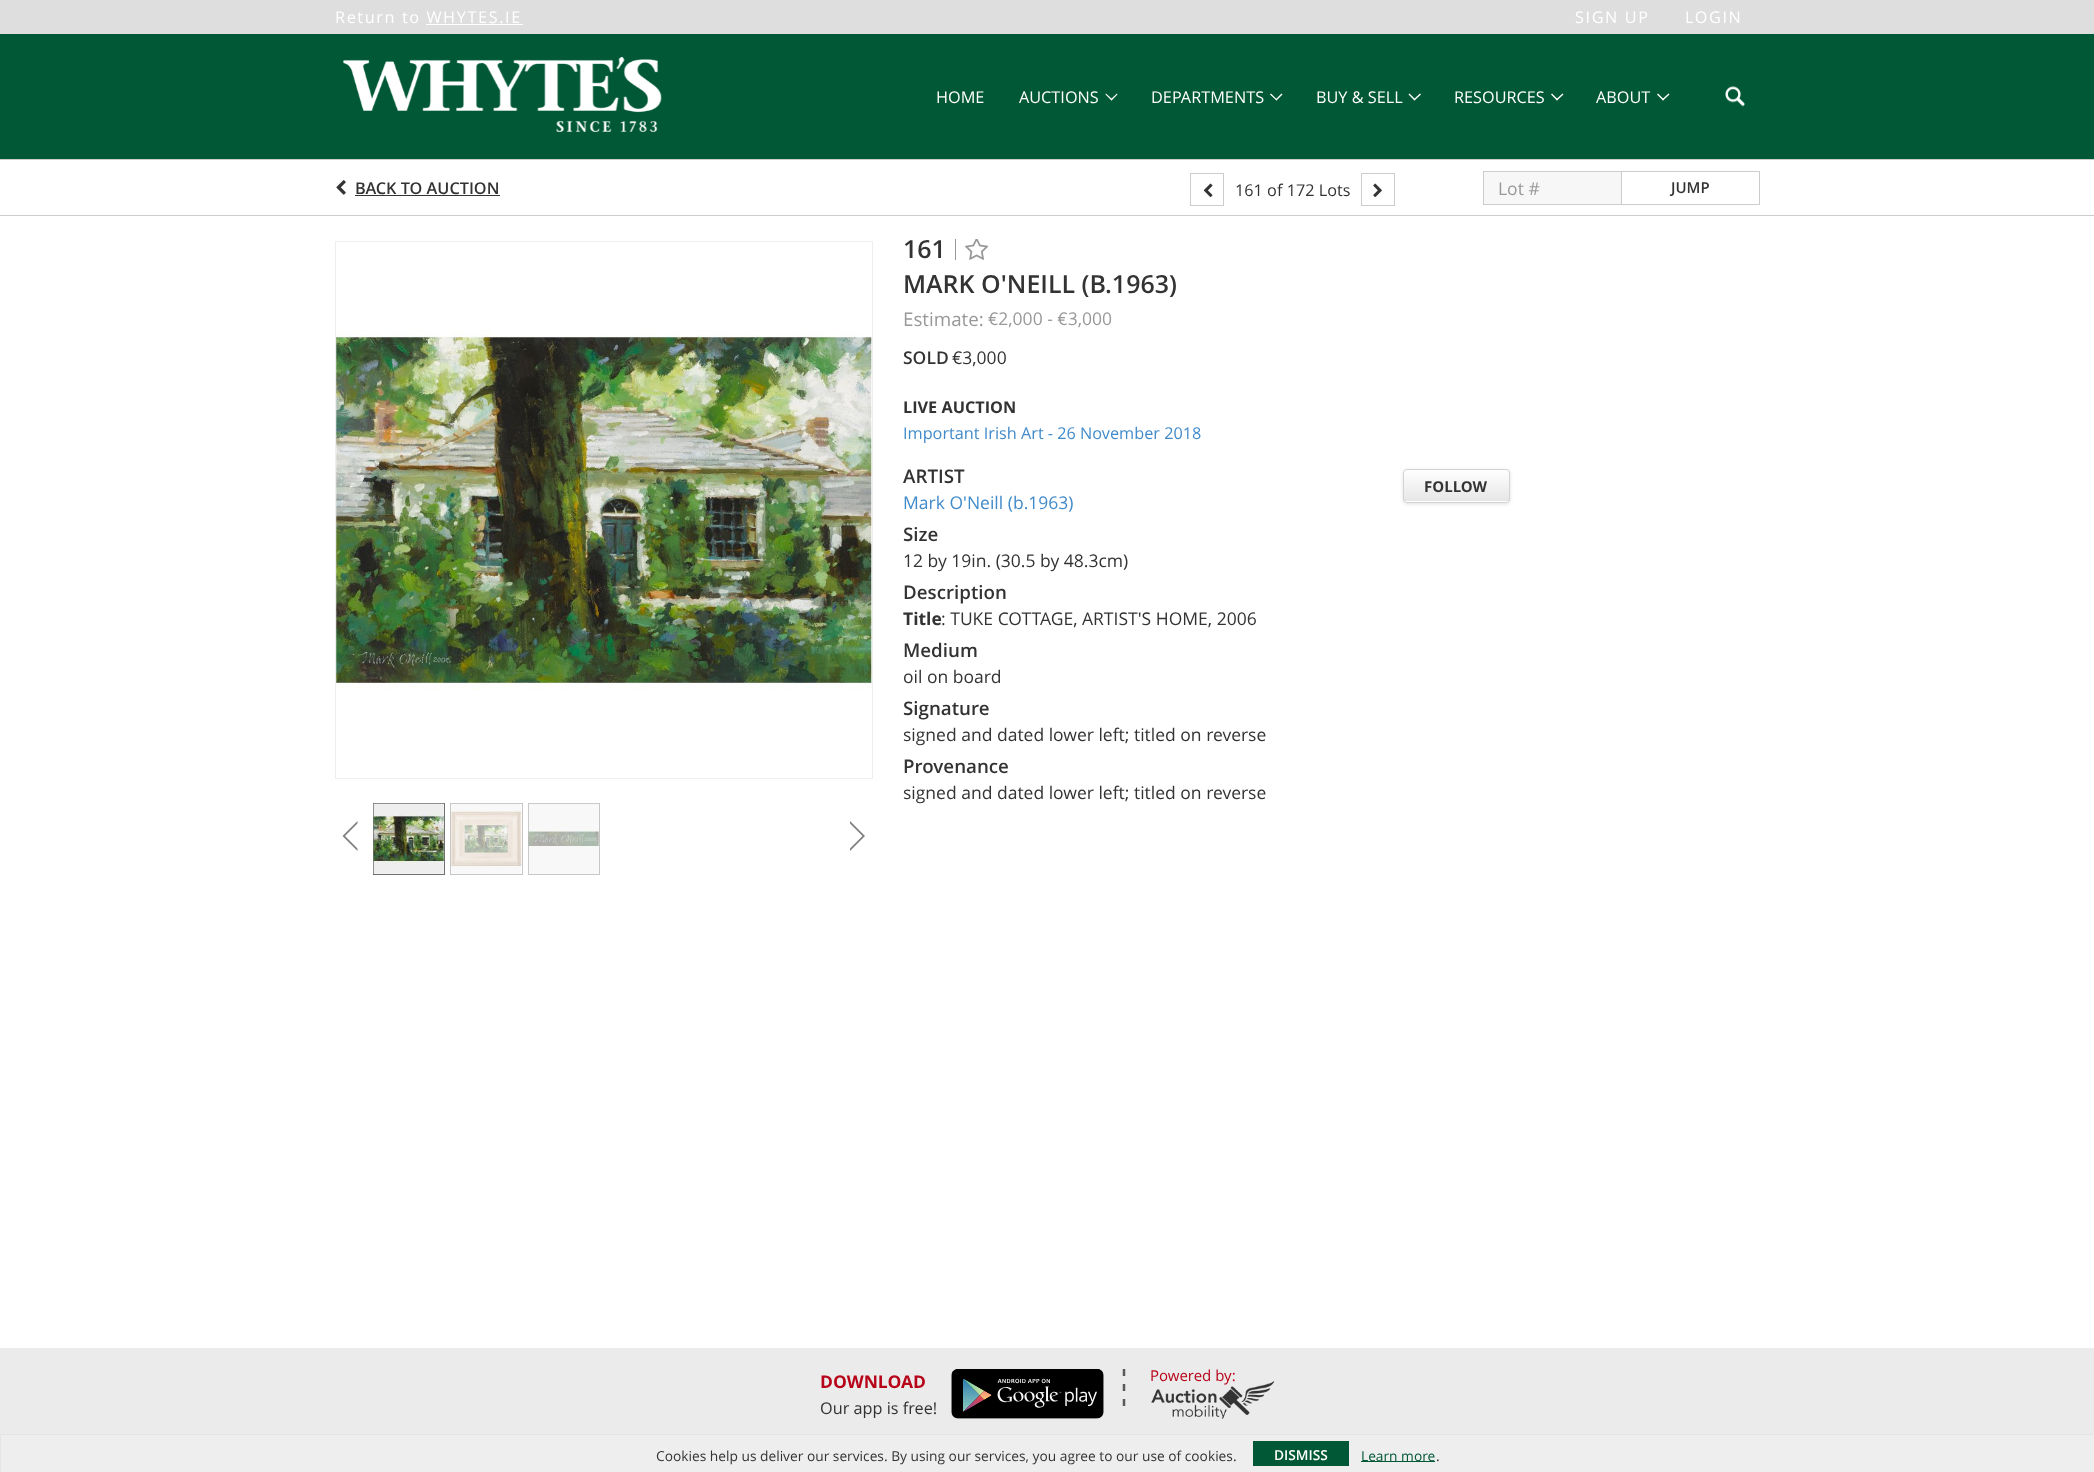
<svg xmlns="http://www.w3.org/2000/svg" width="2094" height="1472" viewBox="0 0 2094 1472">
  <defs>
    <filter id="blur1" x="-50%" y="-200%" width="200%" height="500%"><feGaussianBlur stdDeviation="2"/></filter>
    <clipPath id="clip1"><rect x="1403" y="469" width="107" height="34" rx="4"/></clipPath>
    <linearGradient id="g1" gradientUnits="userSpaceOnUse" x1="1456" y1="470" x2="1456" y2="501"><stop offset="0" stop-color="#ffffff"/><stop offset="1" stop-color="#e6e6e6"/></linearGradient>
    <linearGradient id="g2" gradientUnits="userSpaceOnUse" x1="1456" y1="501" x2="1456" y2="533"><stop offset="0" stop-color="#ffffff"/><stop offset="1" stop-color="#e6e6e6"/></linearGradient>
  </defs>
  <rect width="100%" height="100%" fill="#ffffff"/>
  <rect x="0" y="0" width="2094" height="34" fill="#dedede"/>
  <text x="335" y="23" font-family="Open Sans" font-size="16.25" letter-spacing="1.6" fill="#ffffff">Return to WHYTES.IE</text>
  <rect x="426" y="24" width="97" height="1" fill="#ffffff"/>
  <text x="1575" y="23" font-family="Open Sans" font-size="16.25" letter-spacing="1.6" fill="#ffffff">SIGN UP</text>
  <text x="1685" y="23" font-family="Open Sans" font-size="16.25" letter-spacing="1.6" fill="#ffffff">LOGIN</text>
  <rect x="0" y="34" width="2094" height="125" fill="#005837"/>
  <rect x="0" y="159" width="2094" height="1" fill="#cccccc"/>
  <image x="343" y="57" width="319" height="75" href="img1.png"/>
  <text x="936" y="103" font-family="Open Sans" font-size="16.25" fill="#ffffff">HOME</text>
  <text x="1019" y="103" font-family="Open Sans" font-size="16.25" fill="#ffffff">AUCTIONS</text>
  <path d="M1117 93.5L1117.5 94.5L1111.5 100.5L1110.5 99.5Z" fill="#ffffff"/>
  <path d="M1106 93.5L1112.5 99.5L1111.5 100.5L1105.5 94.5Z" fill="#ffffff"/>
  <text x="1151" y="103" font-family="Open Sans" font-size="16.25" fill="#ffffff">DEPARTMENTS</text>
  <path d="M1281.5 93.5L1282.5 94.5L1276.5 100.5L1275.5 99.5Z" fill="#ffffff"/>
  <path d="M1271 93.5L1277 99.5L1276.5 100.5L1270 94.5Z" fill="#ffffff"/>
  <text x="1316" y="103" font-family="Open Sans" font-size="16.25" fill="#ffffff">BUY &amp; SELL</text>
  <path d="M1420 93.5L1421 94.5L1414.5 100.5L1413.5 99.5Z" fill="#ffffff"/>
  <path d="M1409.5 93.5L1415.5 99.5L1414.5 100.5L1408.5 94.5Z" fill="#ffffff"/>
  <text x="1454" y="103" font-family="Open Sans" font-size="16.25" fill="#ffffff">RESOURCES</text>
  <path d="M1562.5 93.5L1563.5 94.5L1557 100.5L1556 99.5Z" fill="#ffffff"/>
  <path d="M1552 93.5L1558 99.5L1557 100.5L1551 94.5Z" fill="#ffffff"/>
  <text x="1596" y="103" font-family="Open Sans" font-size="16.25" fill="#ffffff">ABOUT</text>
  <path d="M1668.5 93.5L1669.5 94.5L1663 100.5L1662 99.5Z" fill="#ffffff"/>
  <path d="M1658 93.5L1664 99.5L1663 100.5L1657 94.5Z" fill="#ffffff"/>
  <image x="1725" y="86" width="20" height="21" href="img2.png"/>
  <image x="336" y="180" width="10" height="15" href="img3.png"/>
  <text x="355" y="194" font-family="Open Sans" font-size="16.25" font-weight="600" fill="#333333">BACK TO AUCTION</text>
  <rect x="355" y="195" width="145" height="1" fill="#333333"/>
  <rect x="1190.5" y="173.5" width="33" height="32" fill="none" stroke="#cccccc"/>
  <image x="1203" y="183" width="10" height="15" href="img4.png"/>
  <text x="1235" y="196" font-family="Open Sans" font-size="16.25" fill="#333333">161 of 172 Lots</text>
  <rect x="1361.5" y="173.5" width="33" height="32" fill="none" stroke="#cccccc"/>
  <image x="1373" y="183" width="9" height="15" href="img5.png"/>
  <rect x="1484" y="172" width="137" height="32" fill="#f7f7f7"/>
  <rect x="1483" y="171" width="138" height="1" fill="#cccccc"/>
  <rect x="1483" y="204" width="138" height="1" fill="#cccccc"/>
  <rect x="1483" y="171" width="1" height="34" fill="#cccccc"/>
  <text x="1498" y="195" font-family="Open Sans" font-size="17.5" fill="#999999">Lot #</text>
  <rect x="1621.5" y="171.5" width="138" height="33" fill="none" stroke="#cccccc"/>
  <text x="1671" y="193" font-family="Open Sans" font-size="15" font-weight="600" fill="#333333">JUMP</text>
  <rect x="0" y="215" width="2094" height="1" fill="#cccccc"/>
  <rect x="335.5" y="241.5" width="537" height="537" fill="none" stroke="#eeeeee"/>
  <image x="336" y="330" width="536" height="360" href="img6.png"/>
  <rect x="373.5" y="803.5" width="71" height="71" fill="none" stroke="#717171"/>
  <image x="373" y="803" width="71" height="71" href="img7.png"/>
  <rect x="450.5" y="803.5" width="72" height="71" fill="none" stroke="#c6c6c6"/>
  <image x="451" y="803" width="71" height="71" href="img8.png"/>
  <rect x="528.5" y="803.5" width="71" height="71" fill="none" stroke="#c6c6c6"/>
  <path d="M357.5 821V851L342.5 836Z" fill="#808080"/>
  <path d="M360 821V851L345 836Z" fill="#ffffff"/>
  <image x="528" y="803" width="71" height="71" href="img9.png"/>
  <path d="M850 851V821L865 836Z" fill="#808080"/>
  <path d="M847.5 851V821L862.5 836Z" fill="#ffffff"/>
  <text x="903" y="258" font-family="Open Sans" font-size="25" font-weight="600" fill="#333333">161</text>
  <rect x="955" y="239" width="1" height="21" fill="#999999"/>
  <image x="965" y="239" width="24" height="21" href="img10.png"/>
  <text x="903" y="293" font-family="Open Sans" font-size="25" font-weight="600" fill="#333333">MARK O'NEILL (B.1963)</text>
  <text x="903" y="326" font-family="Open Sans" font-size="18.75" fill="#999999">Estimate:</text>
  <text x="988" y="325" font-family="Open Sans" font-size="17.5" fill="#999999">€2,000 - €3,000</text>
  <text x="903" y="364" font-family="Open Sans" font-size="17.5" font-weight="600" fill="#333333">SOLD</text>
  <text x="952" y="364" font-family="Open Sans" font-size="17.5" fill="#333333">€3,000</text>
  <text x="903" y="413" font-family="Open Sans" font-size="16.25" font-weight="bold" fill="#333333">LIVE AUCTION</text>
  <text x="903" y="439" font-family="Open Sans" font-size="16.25" fill="#428bca">Important Irish Art - 26 November 2018</text>
  <text x="903" y="483" font-family="Open Sans" font-size="18.75" font-weight="600" fill="#333333">ARTIST</text>
  <rect x="1404" y="471" width="105" height="32" rx="2.5" fill="#000000" fill-opacity="0.2" filter="url(#blur1)"/>
  <g clip-path="url(#clip1)">
    <rect x="1403" y="470" width="107" height="31" fill="url(#g1)"/>
    <rect x="1403" y="501" width="107" height="2" fill="url(#g2)"/>
  </g>
  <rect x="1403.5" y="469.5" width="106" height="33" rx="3.5" fill="none" stroke="#d4d4d4"/>
  <text x="1424" y="492" font-family="Open Sans" font-size="15" font-weight="bold" fill="#333333">FOLLOW</text>
  <text x="903" y="509" font-family="Open Sans" font-size="17.5" fill="#428bca">Mark O'Neill (b.1963)</text>
  <text x="903" y="541" font-family="Open Sans" font-size="18.75" font-weight="600" fill="#333333">Size</text>
  <text x="903" y="567" font-family="Open Sans" font-size="17.5" fill="#333333">12 by 19in. (30.5 by 48.3cm)</text>
  <text x="903" y="599" font-family="Open Sans" font-size="18.75" font-weight="600" fill="#333333">Description</text>
  <text x="903" y="625" font-family="Open Sans" font-size="17.5" font-weight="bold" fill="#333333">Title</text>
  <text x="941" y="625" font-family="Open Sans" font-size="17.5" fill="#333333">: TUKE COTTAGE, ARTIST'S HOME, 2006</text>
  <text x="903" y="657" font-family="Open Sans" font-size="18.75" font-weight="600" fill="#333333">Medium</text>
  <text x="903" y="683" font-family="Open Sans" font-size="17.5" fill="#333333">oil on board</text>
  <text x="903" y="715" font-family="Open Sans" font-size="18.75" font-weight="600" fill="#333333">Signature</text>
  <text x="903" y="741" font-family="Open Sans" font-size="17.5" fill="#333333">signed and dated lower left; titled on reverse</text>
  <text x="903" y="773" font-family="Open Sans" font-size="18.75" font-weight="600" fill="#333333">Provenance</text>
  <text x="903" y="799" font-family="Open Sans" font-size="17.5" fill="#333333">signed and dated lower left; titled on reverse</text>
  <rect x="0" y="1348" width="2094" height="86" fill="#ebebeb"/>
  <text x="820" y="1388" font-family="Open Sans" font-size="17.5" font-weight="bold" fill="#b70419">DOWNLOAD</text>
  <text x="820" y="1414" font-family="Open Sans" font-size="16.25" fill="#333333">Our app is free!</text>
  <image x="951" y="1369" width="153" height="50" href="img11.png"/>
  <path d="M1124 1369V1376M1124 1384V1391M1124 1399V1406" fill="none" stroke="#595959" stroke-width="2.5"/>
  <text x="1150" y="1381" font-family="Open Sans" font-size="15" fill="#b70419">Powered by:</text>
  <image x="1151" y="1381" width="124" height="38" href="img12.png"/>
  <rect x="1" y="1435" width="2093" height="37" fill="#eeeeee"/>
  <rect x="0" y="1434" width="2094" height="1" fill="#e4e4e4"/>
  <rect x="0" y="1434" width="1" height="38" fill="#e4e4e4"/>
  <text x="656" y="1461" font-family="Open Sans" font-size="13.75" fill="#333333">Cookies help us deliver our services. By using our services, you agree to our use of cookies.</text>
  <rect x="1253" y="1441" width="96" height="25" fill="#005837"/>
  <text x="1274" y="1460" font-family="Open Sans" font-size="13.75" font-weight="600" fill="#ffffff">DISMISS</text>
  <rect x="1361" y="1461" width="74" height="1" fill="#005837"/>
  <text x="1361" y="1461" font-family="Open Sans" font-size="13.75" fill="#005837">Learn more</text>
  <text x="1436" y="1461" font-family="Open Sans" font-size="13.75" fill="#333333">.</text>
</svg>
